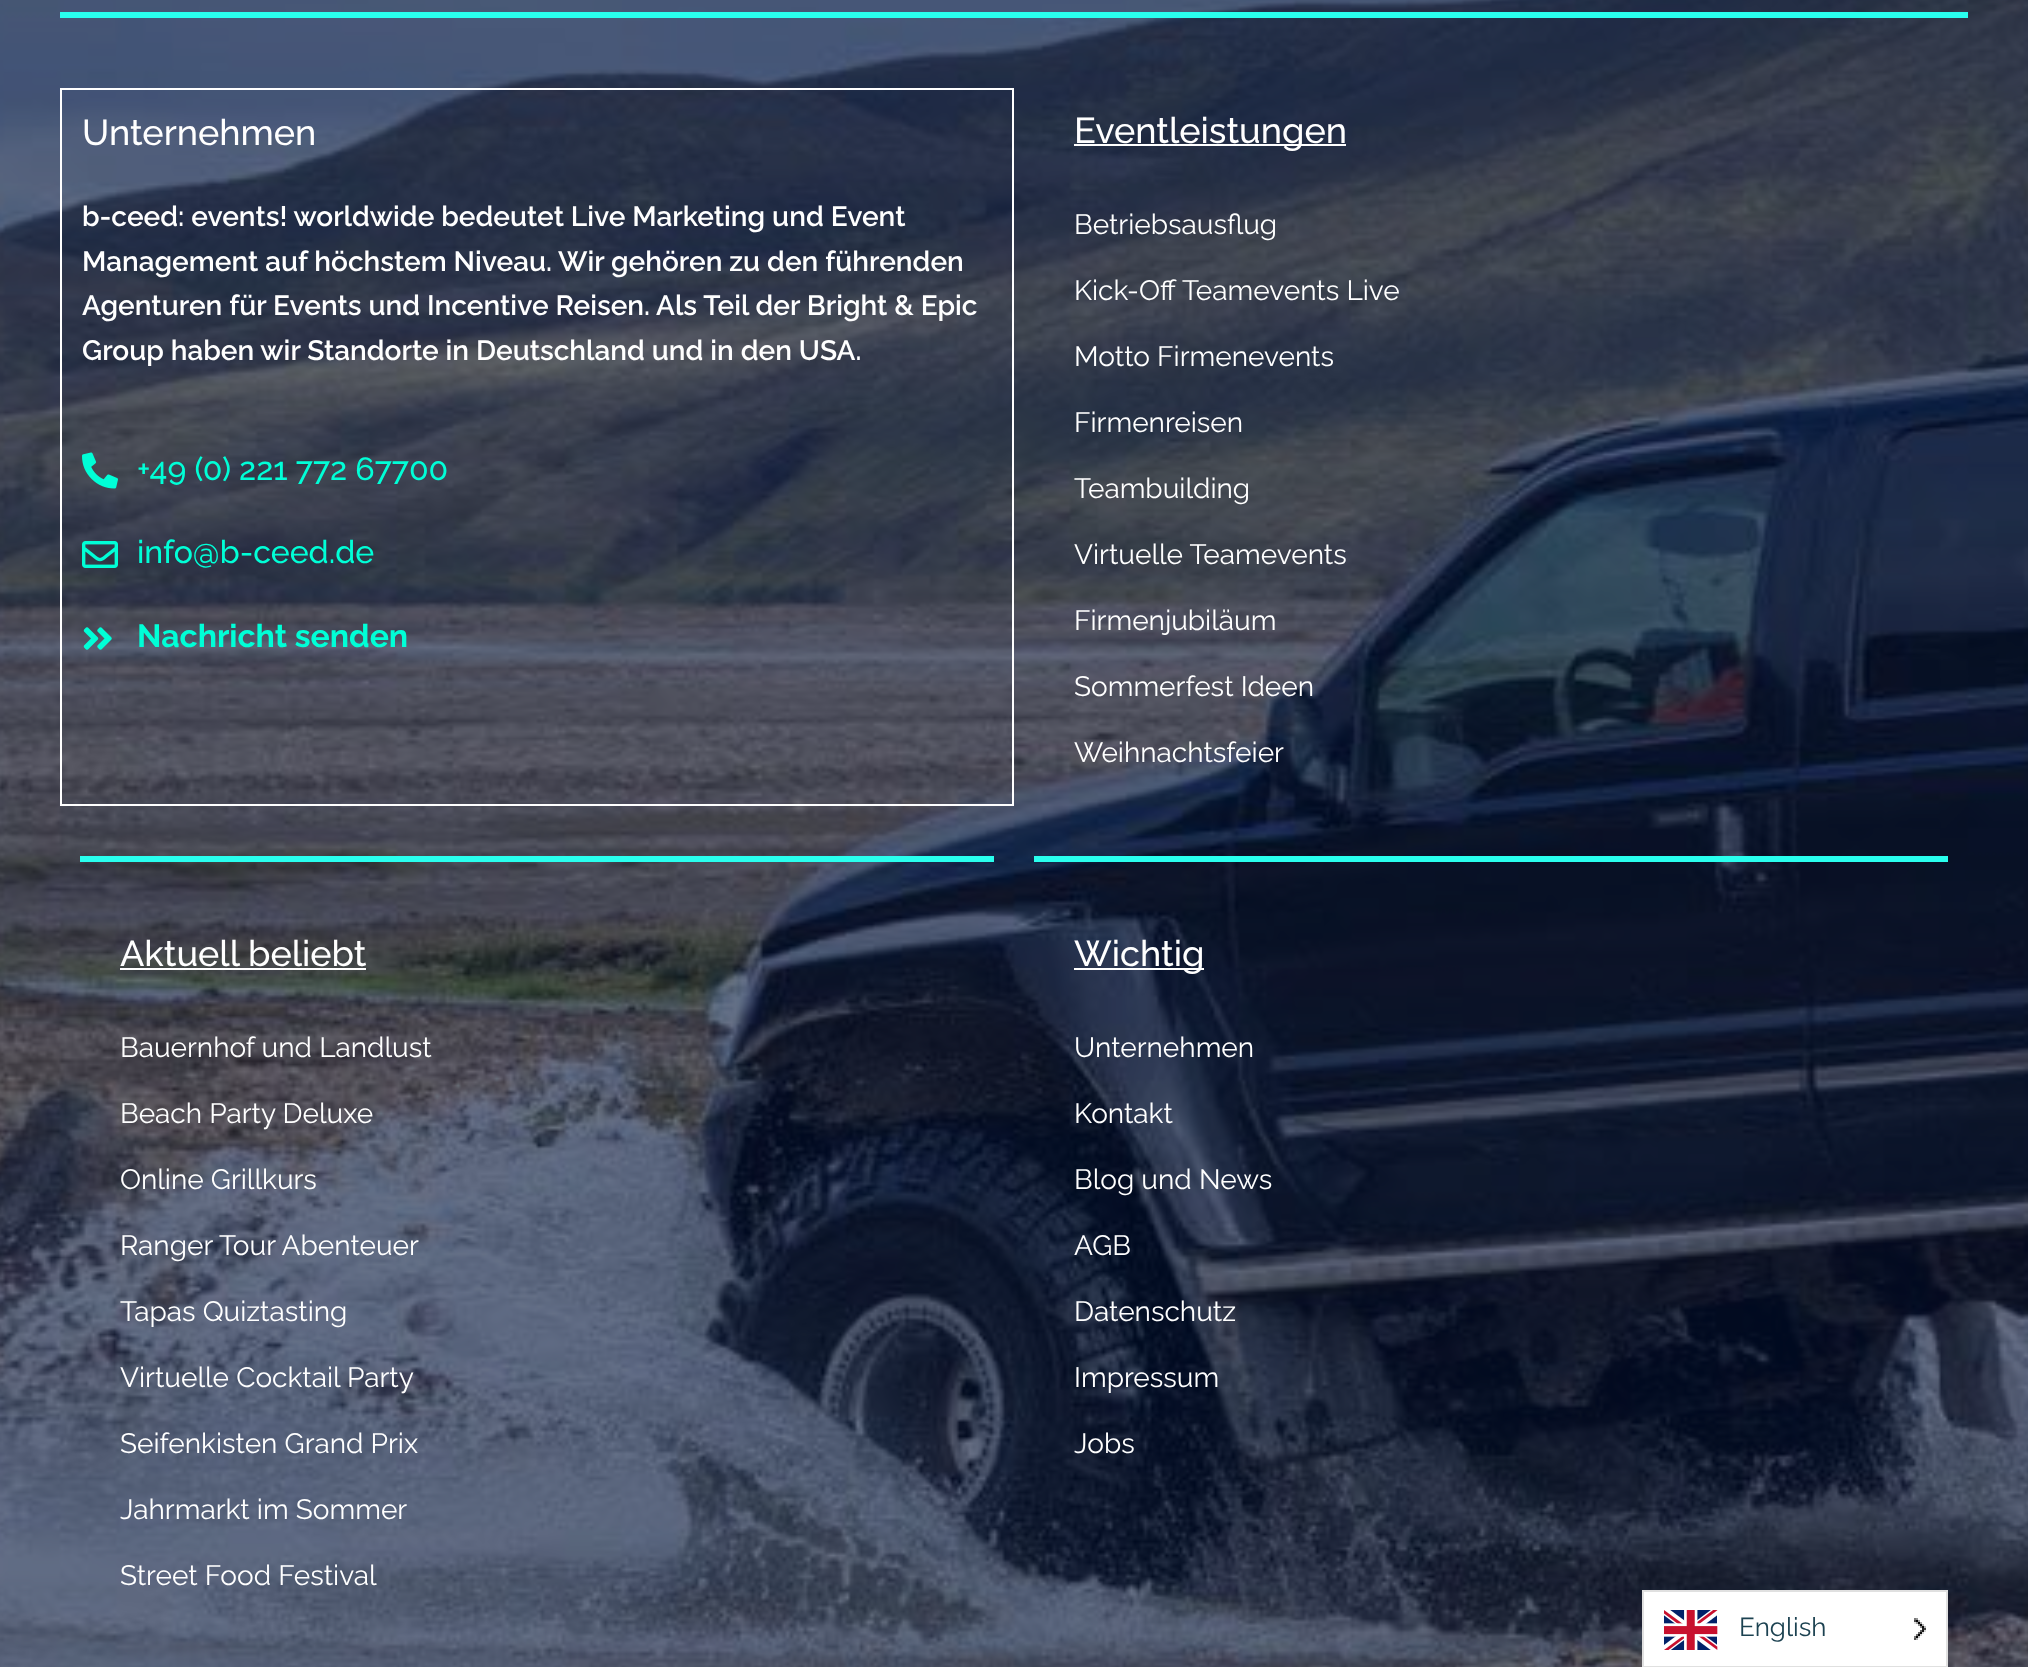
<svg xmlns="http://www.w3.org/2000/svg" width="2028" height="1667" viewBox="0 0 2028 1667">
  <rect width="100%" height="100%" fill="#ffffff"/>
  <image x="0" y="0" width="2028" height="1667" href="img1.png"/>
  <rect x="60" y="12" width="1908" height="6" fill="#29ffee"/>
  <rect x="61" y="89" width="952" height="716" fill="none" stroke="#ffffff" stroke-width="2"/>
  <text x="82" y="145" font-family="Raleway" font-size="36" font-weight="500" fill="#ffffff">Unternehmen</text>
  <text x="82" y="226" font-family="Raleway" font-size="28" font-weight="600" fill="#ffffff">b-ceed: events! worldwide bedeutet Live Marketing und Event</text>
  <text x="82" y="271" font-family="Raleway" font-size="28" font-weight="600" fill="#ffffff">Management auf höchstem Niveau. Wir gehören zu den führenden</text>
  <text x="82" y="315" font-family="Raleway" font-size="28" font-weight="600" fill="#ffffff">Agenturen für Events und Incentive Reisen. Als Teil der Bright &amp; Epic</text>
  <text x="82" y="360" font-family="Raleway" font-size="28" font-weight="600" fill="#ffffff">Group haben wir Standorte in Deutschland und in den USA.</text>
  <image x="82" y="452" width="36" height="37" href="img2.png"/>
  <text x="137" y="480" font-family="Raleway" font-size="32" font-weight="500" fill="#00ffd7">+49 (0) 221 772 67700</text>
  <image x="82" y="541" width="36" height="27" href="img3.png"/>
  <text x="137" y="563" font-family="Raleway" font-size="32" font-weight="500" fill="#00ffd7">info@b-ceed.de</text>
  <image x="83" y="627" width="29" height="23" href="img4.png"/>
  <text x="137" y="647" font-family="Raleway" font-size="32" font-weight="bold" fill="#00ffd7">Nachricht senden</text>
  <rect x="1074" y="144" width="272" height="2" fill="#ffffff"/>
  <text x="1074" y="143" font-family="Raleway" font-size="36" font-weight="500" fill="#ffffff">Eventleistungen</text>
  <text x="1074" y="234" font-family="Raleway" font-size="28" fill="#ffffff">Betriebsausflug</text>
  <text x="1074" y="300" font-family="Raleway" font-size="28" fill="#ffffff">Kick-Off Teamevents Live</text>
  <text x="1074" y="366" font-family="Raleway" font-size="28" fill="#ffffff">Motto Firmenevents</text>
  <text x="1074" y="432" font-family="Raleway" font-size="28" fill="#ffffff">Firmenreisen</text>
  <text x="1074" y="498" font-family="Raleway" font-size="28" fill="#ffffff">Teambuilding</text>
  <text x="1074" y="564" font-family="Raleway" font-size="28" fill="#ffffff">Virtuelle Teamevents</text>
  <text x="1074" y="630" font-family="Raleway" font-size="28" fill="#ffffff">Firmenjubiläum</text>
  <text x="1074" y="696" font-family="Raleway" font-size="28" fill="#ffffff">Sommerfest Ideen</text>
  <text x="1074" y="762" font-family="Raleway" font-size="28" fill="#ffffff">Weihnachtsfeier</text>
  <rect x="80" y="856" width="914" height="6" fill="#29ffee"/>
  <text x="120" y="966" font-family="Raleway" font-size="36" font-weight="500" fill="#ffffff">Aktuell beliebt</text>
  <rect x="120" y="968" width="246" height="2" fill="#ffffff"/>
  <text x="120" y="1057" font-family="Raleway" font-size="28" fill="#ffffff">Bauernhof und Landlust</text>
  <text x="120" y="1123" font-family="Raleway" font-size="28" fill="#ffffff">Beach Party Deluxe</text>
  <text x="120" y="1189" font-family="Raleway" font-size="28" fill="#ffffff">Online Grillkurs</text>
  <text x="120" y="1255" font-family="Raleway" font-size="28" fill="#ffffff">Ranger Tour Abenteuer</text>
  <text x="120" y="1321" font-family="Raleway" font-size="28" fill="#ffffff">Tapas Quiztasting</text>
  <text x="120" y="1387" font-family="Raleway" font-size="28" fill="#ffffff">Virtuelle Cocktail Party</text>
  <text x="120" y="1453" font-family="Raleway" font-size="28" fill="#ffffff">Seifenkisten Grand Prix</text>
  <text x="120" y="1519" font-family="Raleway" font-size="28" fill="#ffffff">Jahrmarkt im Sommer</text>
  <text x="120" y="1585" font-family="Raleway" font-size="28" fill="#ffffff">Street Food Festival</text>
  <rect x="1034" y="856" width="914" height="6" fill="#29ffee"/>
  <rect x="1074" y="968" width="130" height="2" fill="#ffffff"/>
  <text x="1074" y="966" font-family="Raleway" font-size="36" font-weight="500" fill="#ffffff">Wichtig</text>
  <text x="1074" y="1057" font-family="Raleway" font-size="28" fill="#ffffff">Unternehmen</text>
  <text x="1074" y="1123" font-family="Raleway" font-size="28" fill="#ffffff">Kontakt</text>
  <text x="1074" y="1189" font-family="Raleway" font-size="28" fill="#ffffff">Blog und News</text>
  <text x="1074" y="1255" font-family="Raleway" font-size="28" fill="#ffffff">AGB</text>
  <text x="1074" y="1321" font-family="Raleway" font-size="28" fill="#ffffff">Datenschutz</text>
  <text x="1074" y="1387" font-family="Raleway" font-size="28" fill="#ffffff">Impressum</text>
  <text x="1074" y="1453" font-family="Raleway" font-size="28" fill="#ffffff">Jobs</text>
  <rect x="1643" y="1591" width="304" height="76" fill="#ffffff" stroke="#e0e0e0" stroke-width="2"/>
  <image x="1664" y="1610" width="54" height="40" href="img5.png"/>
  <text x="1739" y="1636" font-family="Raleway" font-size="26" fill="#1c4251">English</text>
  <image x="1914" y="1618" width="12" height="22" href="img6.png"/>
</svg>
